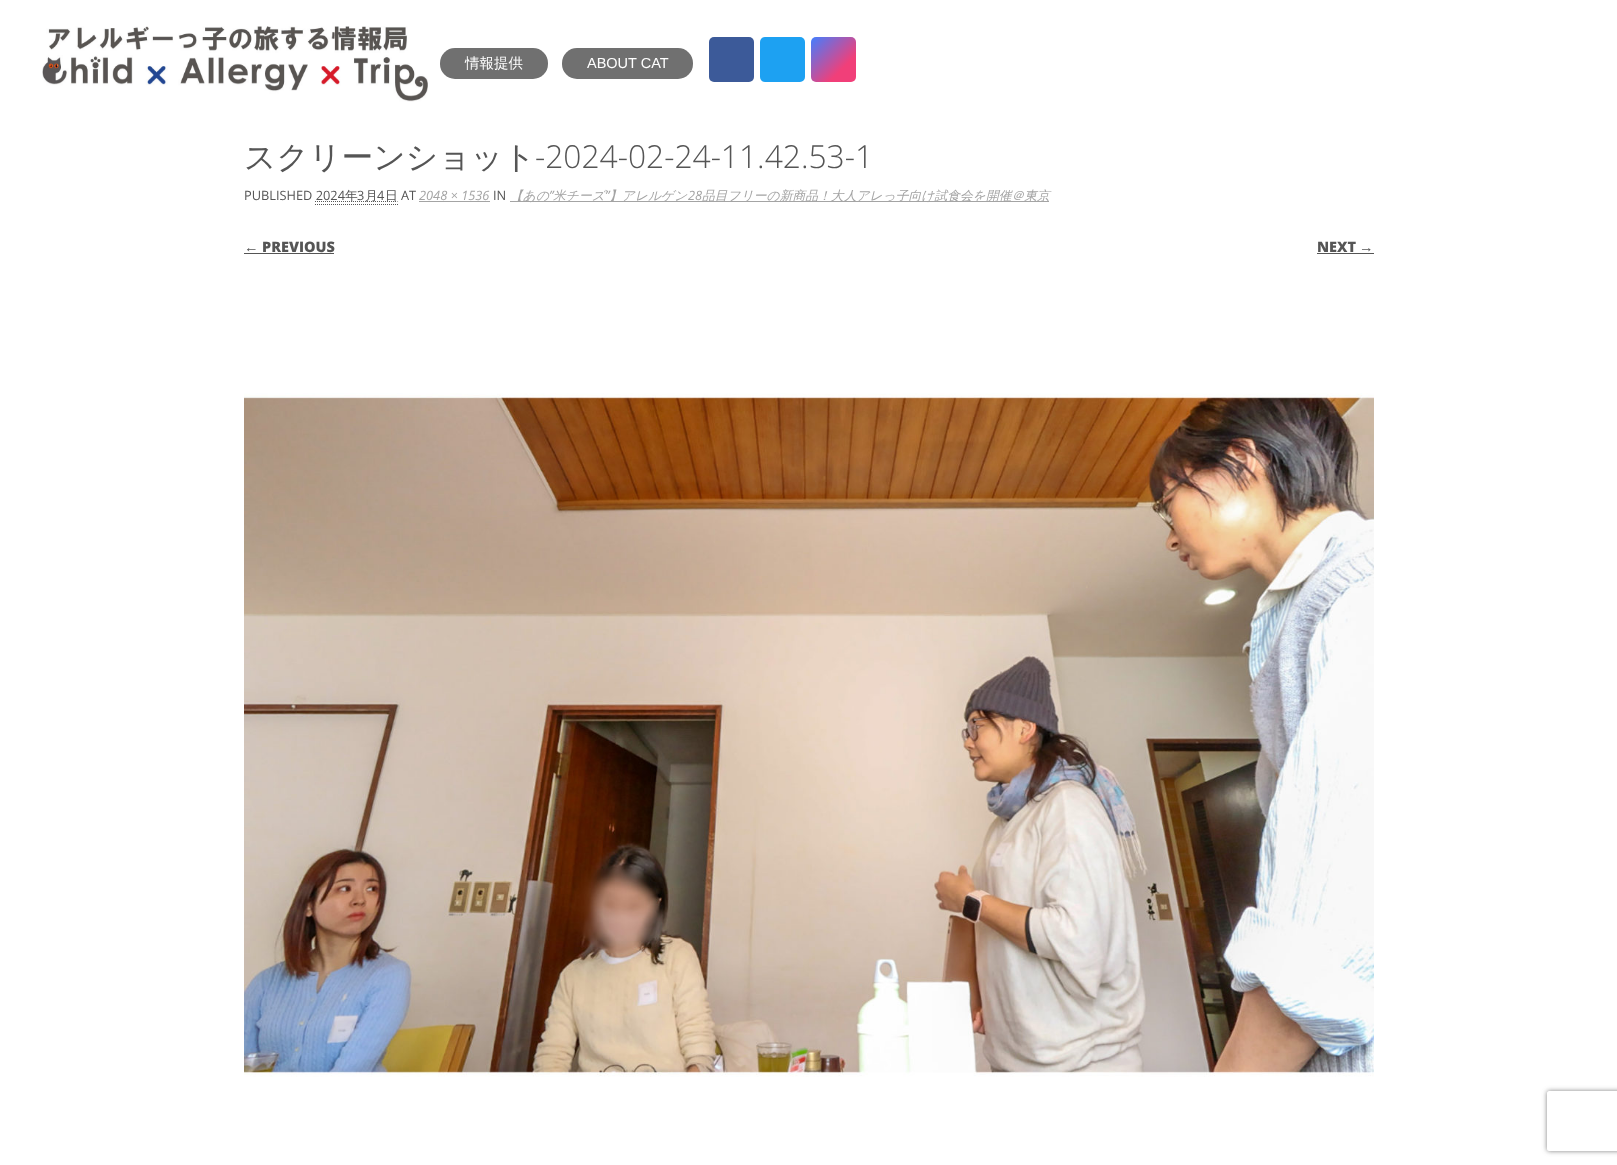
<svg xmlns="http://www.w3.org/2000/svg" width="1617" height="1165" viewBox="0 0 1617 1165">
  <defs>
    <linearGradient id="g1" gradientUnits="userSpaceOnUse" x1="811" y1="37" x2="856" y2="82"><stop offset="0" stop-color="#427eff"/><stop offset="0.7" stop-color="#f13f79"/></linearGradient>
    <clipPath id="clip1"><path d="M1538 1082H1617V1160H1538ZM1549 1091H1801C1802 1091 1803 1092 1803 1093V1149C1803 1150 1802 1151 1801 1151H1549C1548 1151 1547 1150 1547 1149V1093C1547 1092 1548 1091 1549 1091Z" clip-rule="evenodd"/></clipPath>
    <filter id="blur1" x="-50%" y="-200%" width="200%" height="500%"><feGaussianBlur stdDeviation="2.5"/></filter>
  </defs>
  <rect width="100%" height="100%" fill="#ffffff"/>
  <image x="42" y="26" width="386" height="76" href="img1.png"/>
  <rect x="440" y="48" width="108" height="31" rx="15" fill="#707070"/>
  <text x="465" y="68" font-family="WenQuanYi Zen Hei" font-size="14.5" font-weight="500" fill="#ffffff">情報提供</text>
  <rect x="562" y="48" width="131" height="31" rx="15" fill="#707070"/>
  <text x="587" y="68" font-family="Liberation Sans" font-size="14.5" fill="#ffffff">ABOUT CAT</text>
  <rect x="709" y="37" width="45" height="45" rx="5" fill="#3c5a99"/>
  <rect x="760" y="37" width="45" height="45" rx="5" fill="#1da1f2"/>
  <rect x="811" y="37" width="45" height="45" rx="5" fill="url(#g1)"/>
  <text x="244" y="168" font-family="WenQuanYi Zen Hei" font-size="31.75" font-weight="500" fill="#555555">スクリーンショット</text>
  <text x="535" y="168" font-family="Open Sans" font-size="31.75" font-weight="300" fill="#555555">-2024-02-24-11.42.53-1</text>
  <text x="244" y="200" font-family="Open Sans" font-size="12.8" fill="#555555">PUBLISHED 2024</text>
  <path d="M315 201.5H397.5" fill="none" stroke="#555555" stroke-dasharray="1 1"/>
  <text x="345" y="200" font-family="WenQuanYi Zen Hei" font-size="12.8" font-weight="500" fill="#555555">年</text>
  <text x="357" y="200" font-family="Open Sans" font-size="12.8" fill="#555555">3</text>
  <text x="365" y="200" font-family="WenQuanYi Zen Hei" font-size="12.8" font-weight="500" fill="#555555">月</text>
  <path d="M315 204.5H398" fill="none" stroke="#555555" stroke-dasharray="1 1"/>
  <text x="377" y="200" font-family="Open Sans" font-size="12.8" fill="#555555">4</text>
  <text x="385" y="200" font-family="WenQuanYi Zen Hei" font-size="12.8" font-weight="500" fill="#555555">日</text>
  <text x="401" y="200" font-family="Open Sans" font-size="12.8" fill="#555555">AT</text>
  <text x="419" y="200" font-family="Open Sans" font-size="12.8" font-style="italic" fill="#a4a4a4">2048 × 1536</text>
  <rect x="419" y="201" width="71" height="1" fill="#a4a4a4"/>
  <text x="493" y="200" font-family="Open Sans" font-size="12.8" fill="#555555">IN</text>
  <rect x="510" y="201" width="539" height="1" fill="#a4a4a4"/>
  <text x="510" y="200" font-family="WenQuanYi Zen Hei" font-size="12.8" font-weight="500" font-style="italic" fill="#a4a4a4">【あの</text>
  <text x="549" y="200" font-family="Open Sans" font-size="12.8" font-style="italic" fill="#a4a4a4">”</text>
  <text x="553" y="200" font-family="WenQuanYi Zen Hei" font-size="12.8" font-weight="500" font-style="italic" fill="#a4a4a4">米チーズ</text>
  <text x="605" y="200" font-family="Open Sans" font-size="12.8" font-style="italic" fill="#a4a4a4">”</text>
  <text x="609" y="200" font-family="WenQuanYi Zen Hei" font-size="12.8" font-weight="500" font-style="italic" fill="#a4a4a4">】アレルゲン</text>
  <text x="688" y="200" font-family="Open Sans" font-size="12.8" font-style="italic" fill="#a4a4a4">28</text>
  <text x="702" y="200" font-family="WenQuanYi Zen Hei" font-size="12.8" font-weight="500" font-style="italic" fill="#a4a4a4">品目フリーの新商品！大人アレっ子向け試食会を開催＠東京</text>
  <text x="244" y="252" font-family="Liberation Sans" font-size="14.5" font-weight="bold" fill="#555555">←</text>
  <rect x="244" y="253" width="90" height="1" fill="#555555"/>
  <text x="262" y="252" font-family="Open Sans" font-size="14.5" font-weight="800" fill="#555555">PREVIOUS</text>
  <text x="1317" y="252" font-family="Open Sans" font-size="14.5" font-weight="800" fill="#555555">NEXT</text>
  <text x="1359" y="252" font-family="Liberation Sans" font-size="14.5" font-weight="bold" fill="#555555">→</text>
  <rect x="1317" y="253" width="57" height="1" fill="#555555"/>
  <image x="244" y="393" width="1130" height="684" href="img2.png"/>
  <g clip-path="url(#clip1)">
    <rect x="1547" y="1091" width="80" height="60" rx="2" fill="#808080" filter="url(#blur1)"/>
  </g>
</svg>
